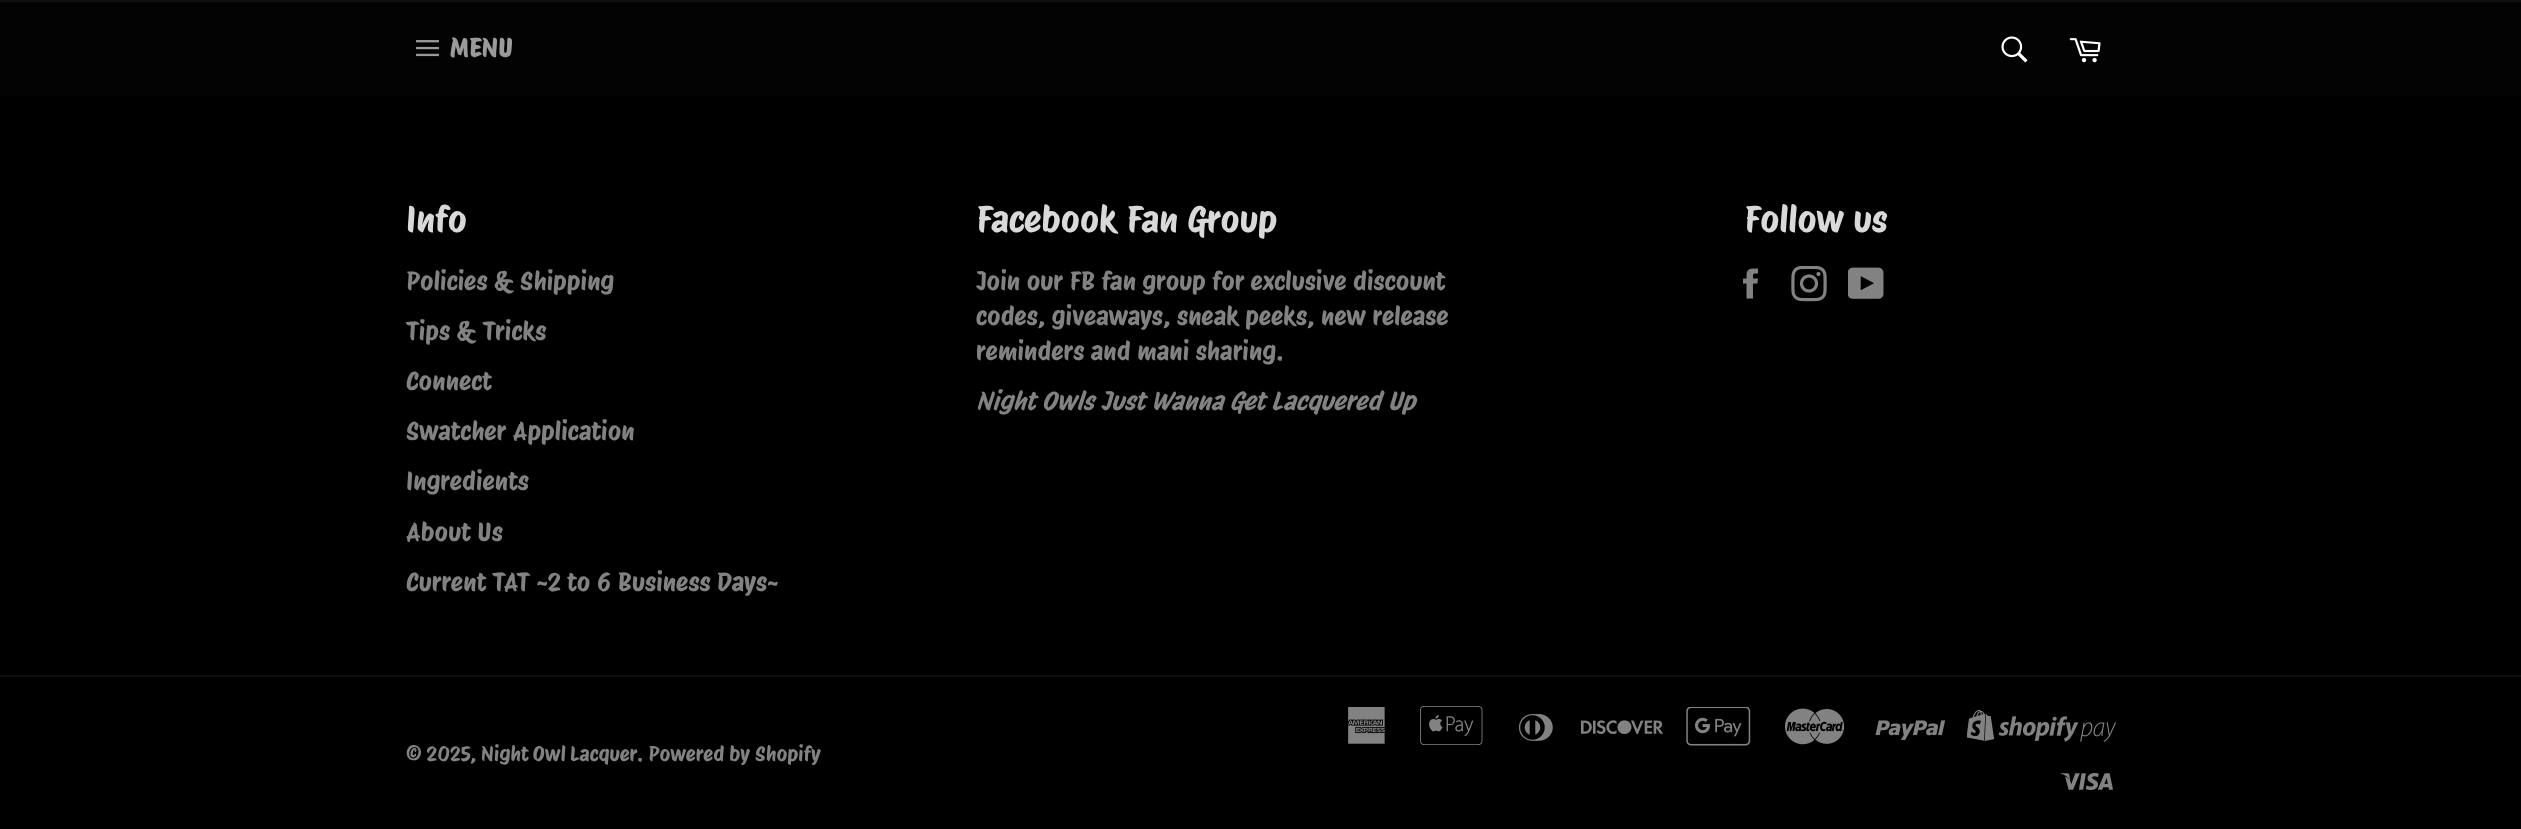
<svg xmlns="http://www.w3.org/2000/svg" width="2521" height="829" viewBox="0 0 2521 829">
  <rect width="100%" height="100%" fill="#000000"/>
  <rect x="0" y="2" width="2521" height="94" fill="#030303"/>
  <rect x="0" y="0" width="2521" height="2" fill="#101010"/>
  <image x="416" y="40" width="23" height="17" href="img1.png"/>
  <text x="450" y="57" font-family="Protest Riot" font-size="25.5" font-weight="bold" fill="#9a9a9a">MENU</text>
  <image x="2001" y="36" width="27" height="27" href="img2.png"/>
  <image x="2069" y="38" width="32" height="25" href="img3.png"/>
  <text x="406" y="232" font-family="Protest Riot" font-size="36" fill="#d9d9d9">Info</text>
  <text x="406" y="290" font-family="Protest Riot" font-size="25.5" fill="#828282">Policies &amp; Shipping</text>
  <text x="406" y="340" font-family="Protest Riot" font-size="25.5" fill="#828282">Tips &amp; Tricks</text>
  <text x="406" y="390" font-family="Protest Riot" font-size="25.5" fill="#828282">Connect</text>
  <text x="406" y="440" font-family="Protest Riot" font-size="25.5" fill="#828282">Swatcher Application</text>
  <text x="406" y="490" font-family="Protest Riot" font-size="25.5" fill="#828282">Ingredients</text>
  <text x="406" y="541" font-family="Protest Riot" font-size="25.5" fill="#828282">About Us</text>
  <text x="406" y="591" font-family="Protest Riot" font-size="25.5" fill="#828282">Current TAT ~2 to 6 Business Days~</text>
  <text x="976" y="232" font-family="Protest Riot" font-size="36" fill="#d9d9d9">Facebook Fan Group</text>
  <text x="976" y="290" font-family="Protest Riot" font-size="25.5" fill="#828282">Join our FB fan group for exclusive discount</text>
  <text x="976" y="325" font-family="Protest Riot" font-size="25.5" fill="#828282">codes, giveaways, sneak peeks, new release</text>
  <text x="976" y="360" font-family="Protest Riot" font-size="25.5" fill="#828282">reminders and mani sharing.</text>
  <text x="976" y="410" font-family="Protest Riot" font-size="25.5" font-style="italic" fill="#828282">Night Owls Just Wanna Get Lacquered Up</text>
  <text x="1744" y="232" font-family="Protest Riot" font-size="36" fill="#d9d9d9">Follow us</text>
  <image x="1743" y="268" width="15" height="31" href="img4.png"/>
  <image x="1791" y="266" width="36" height="36" href="img5.png"/>
  <image x="1848" y="267" width="36" height="32" href="img6.png"/>
  <rect x="0" y="675" width="2521" height="2" fill="#0d0d0d"/>
  <text x="406" y="761" font-family="Protest Riot" font-size="20.5" fill="#828282">© 2025,</text>
  <text x="481" y="761" word-spacing="-1" font-family="Protest Riot" font-size="20.5" fill="#828282">Night Owl Lacquer</text>
  <text x="637" y="761" font-family="Protest Riot" font-size="20.5" fill="#828282">. Powered by Shopify</text>
  <image x="1348" y="707" width="37" height="37" href="img7.png"/>
  <image x="1420" y="706" width="63" height="39" href="img8.png"/>
  <image x="1518" y="714" width="35" height="27" href="img9.png"/>
  <image x="1581" y="720" width="83" height="15" href="img10.png"/>
  <image x="1686" y="707" width="65" height="39" href="img11.png"/>
  <image x="1785" y="708" width="60" height="37" href="img12.png"/>
  <image x="1875" y="720" width="71" height="20" href="img13.png"/>
  <image x="1967" y="710" width="150" height="32" href="img14.png"/>
  <image x="2060" y="772" width="53" height="18" href="img15.png"/>
</svg>
